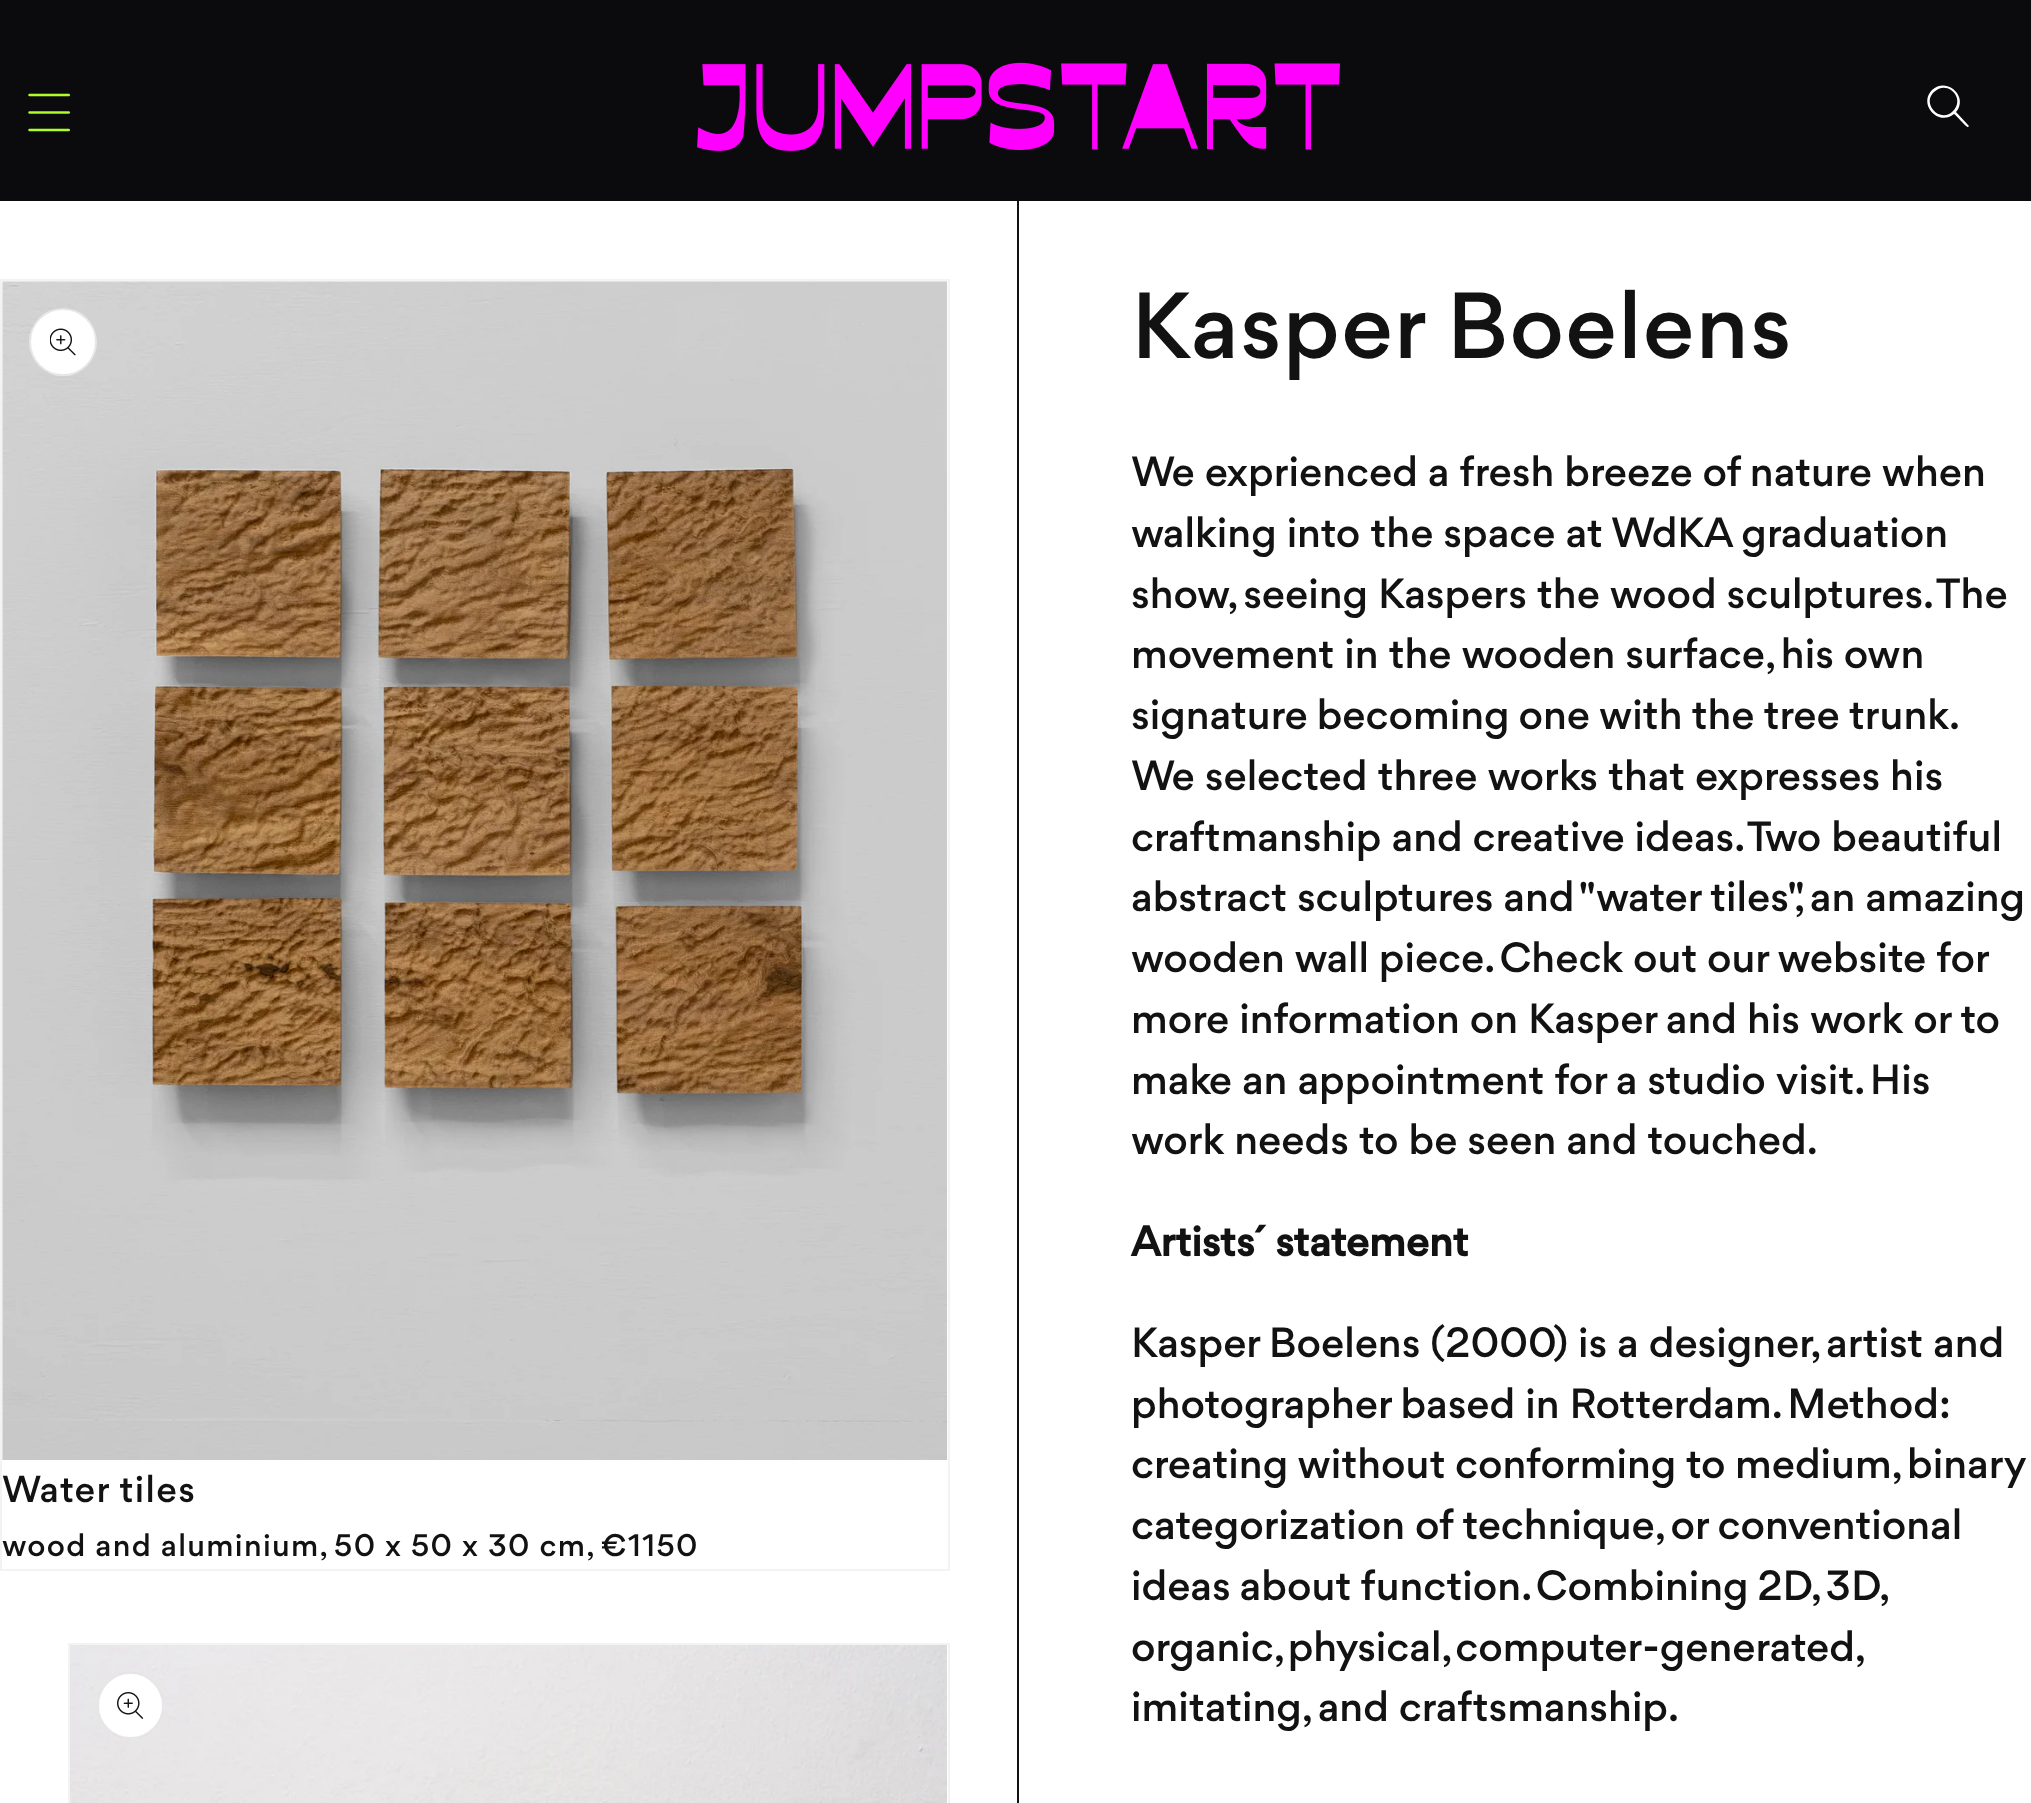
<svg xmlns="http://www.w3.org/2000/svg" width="2031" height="1803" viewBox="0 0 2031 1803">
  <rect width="100%" height="100%" fill="#ffffff"/>
  <rect x="1017" y="200" width="2" height="1603" fill="#121212"/>
  <rect x="0" y="0" width="2031" height="201" fill="#0b0b0d"/>
  <image x="28" y="93" width="42" height="39" href="img1.png"/>
  <image x="697" y="62" width="643" height="89" href="img2.png"/>
  <path d="M1953 111C1941 124 1921 104 1934 92C1947 79 1966 98 1953 111ZM1954 114C1938 127 1918 104 1932 90C1947 76 1969 97 1956 112L1969 126L1968 127C1967 128 1956 115 1954 114Z" fill="#ffffff" fill-rule="evenodd"/>
  <rect x="1" y="280" width="948" height="1290" fill="none" stroke="#f3f3f3" stroke-width="2"/>
  <image x="2" y="281" width="946" height="1179" href="img3.png"/>
  <circle cx="63" cy="342" r="34" fill="#ffffff"/>
  <circle cx="63" cy="342" r="33" fill="none" stroke="#121212" stroke-opacity="0.1" stroke-width="2"/>
  <image x="50" y="328" width="26" height="28" href="img4.png"/>
  <text x="2" y="1502" font-family="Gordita" font-size="36" font-weight="500" letter-spacing="1.35" fill="#121212">Water tiles</text>
  <text x="2" y="1556" font-family="Gordita" font-size="30" font-weight="500" letter-spacing="1.35" fill="#121212">wood and aluminium, 50 x 50 x 30 cm, €1150</text>
  <rect x="69" y="1644" width="880" height="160" fill="none" stroke="#f3f3f3" stroke-width="2"/>
  <image x="70" y="1645" width="877" height="158" href="img5.png"/>
  <circle cx="130.5" cy="1705.5" r="33.5" fill="#ffffff"/>
  <circle cx="130.5" cy="1705.5" r="32.5" fill="none" stroke="#121212" stroke-opacity="0.1" stroke-width="2"/>
  <image x="117" y="1692" width="27" height="27" href="img6.png"/>
  <text x="1131" y="358" font-family="Gordita" font-size="90" font-weight="500" letter-spacing="1.35" fill="#121212">Kasper Boelens</text>
  <text x="1131" y="486" font-family="Gordita" font-size="40.5" font-weight="500" fill="#121212">We exprienced a fresh breeze of nature when</text>
  <text x="1131" y="547" font-family="Gordita" font-size="40.5" font-weight="500" fill="#121212">walking into the space at WdKA graduation</text>
  <text x="1131" y="608" font-family="Gordita" font-size="40.5" font-weight="500" fill="#121212">show, seeing Kaspers the wood sculptures. The</text>
  <text x="1131" y="668" font-family="Gordita" font-size="40.5" font-weight="500" fill="#121212">movement in the wooden surface, his own</text>
  <text x="1131" y="729" word-spacing="-1" font-family="Gordita" font-size="40.5" font-weight="500" fill="#121212">signature becoming one with the tree trunk.</text>
  <text x="1131" y="790" font-family="Gordita" font-size="40.5" font-weight="500" fill="#121212">We selected three works that expresses his</text>
  <text x="1131" y="851" font-family="Gordita" font-size="40.5" font-weight="500" fill="#121212">craftmanship and creative ideas. Two beautiful</text>
  <text x="1131" y="911" font-family="Gordita" font-size="40.5" font-weight="500" fill="#121212">abstract sculptures and "water tiles", an amazing</text>
  <text x="1131" y="972" word-spacing="-0.25" font-family="Gordita" font-size="40.5" font-weight="500" fill="#121212">wooden wall piece. Check out our website for</text>
  <text x="1131" y="1033" font-family="Gordita" font-size="40.5" font-weight="500" fill="#121212">more information on Kasper and his work or to</text>
  <text x="1131" y="1094" font-family="Gordita" font-size="40.5" font-weight="500" fill="#121212">make an appointment for a studio visit. His</text>
  <text x="1131" y="1154" font-family="Gordita" font-size="40.5" font-weight="500" fill="#121212">work needs to be seen and touched.</text>
  <text x="1131" y="1256" font-family="Gordita" font-size="40.5" font-weight="bold" fill="#121212">Artists´ statement</text>
  <text x="1131" y="1357" font-family="Gordita" font-size="40.5" font-weight="500" fill="#121212">Kasper Boelens (2000) is a designer, artist and</text>
  <text x="1131" y="1418" font-family="Gordita" font-size="40.5" font-weight="500" fill="#121212">photographer based in Rotterdam. Method:</text>
  <text x="1131" y="1478" word-spacing="-0.5" font-family="Gordita" font-size="40.5" font-weight="500" fill="#121212">creating without conforming to medium, binary</text>
  <text x="1131" y="1539" font-family="Gordita" font-size="40.5" font-weight="500" fill="#121212">categorization of technique, or conventional</text>
  <text x="1131" y="1600" word-spacing="-1" font-family="Gordita" font-size="40.5" font-weight="500" fill="#121212">ideas about function. Combining 2D, 3D,</text>
  <text x="1131" y="1661" word-spacing="-2" font-family="Gordita" font-size="40.5" font-weight="500" fill="#121212">organic, physical, computer-generated,</text>
  <text x="1131" y="1721" font-family="Gordita" font-size="40.5" font-weight="500" fill="#121212">imitating, and craftsmanship.</text>
</svg>
